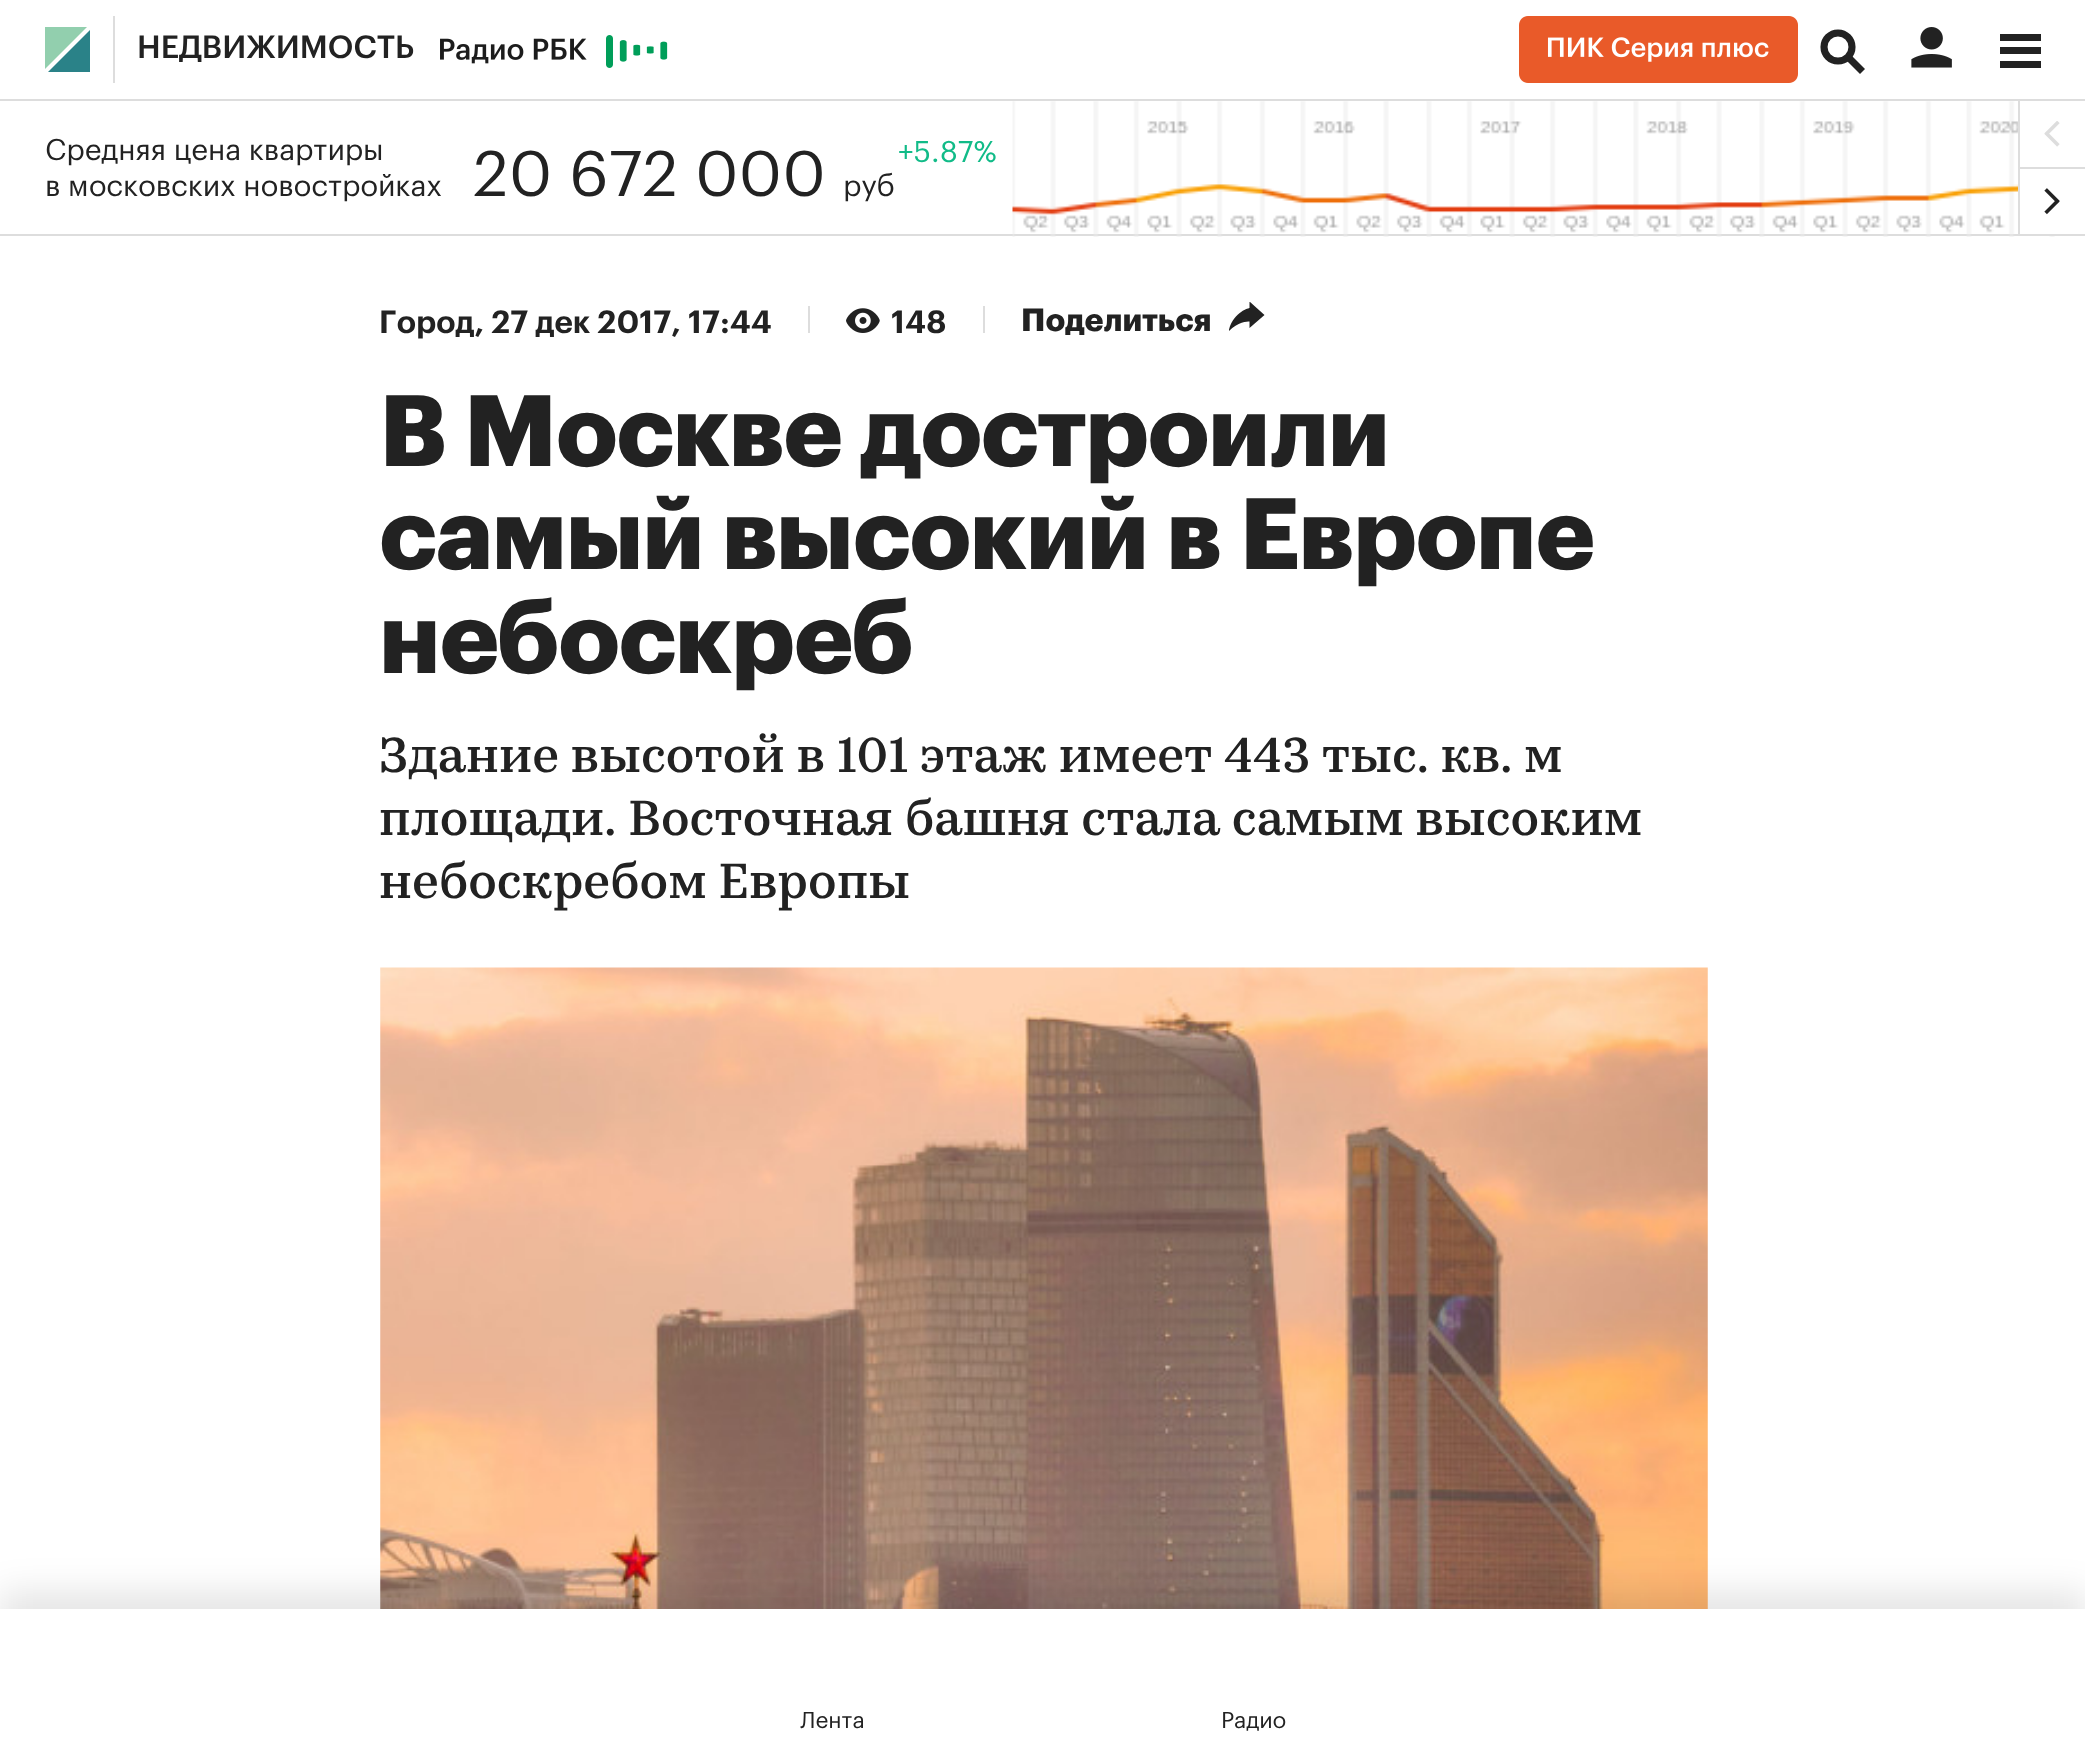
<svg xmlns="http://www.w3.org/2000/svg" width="2085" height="1743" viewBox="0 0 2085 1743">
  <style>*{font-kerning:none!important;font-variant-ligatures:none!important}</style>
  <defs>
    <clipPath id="clip1"><rect x="1229" y="302" width="36" height="31"/></clipPath>
    <filter id="blur1" x="-50%" y="-200%" width="200%" height="500%"><feGaussianBlur stdDeviation="17"/></filter>
  </defs>
  <rect width="100%" height="100%" fill="#ffffff"/>
  <rect x="0" y="99" width="2085" height="2" fill="#dddddd"/>
  <path d="M45 27V69L87 27Z" fill="#92cfae" fill-rule="evenodd"/>
  <path d="M48 72H90V30Z" fill="#2a8288" fill-rule="evenodd"/>
  <rect x="113" y="16" width="2" height="67" fill="#dddddd"/>
  <text x="137" y="58" font-family="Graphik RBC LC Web" font-size="31.5" font-weight="500" fill="#222222">НЕДВИЖИМОСТЬ</text>
  <image x="440" y="35" width="228" height="33" href="img1.png"/>
  <image x="1519" y="16" width="279" height="67" href="img2.png"/>
  <path d="M1865 69L1860 74L1842.5 56.5L1847.5 51.5Z" fill="#222222" fill-rule="evenodd"/>
  <circle cx="1838" cy="47" r="14" fill="#ffffff" stroke="#222222" stroke-width="7.1"/>
  <image x="1911" y="27" width="41" height="41" href="img3.png"/>
  <rect x="2000" y="34" width="41" height="7" fill="#222222"/>
  <rect x="2000" y="47" width="41" height="7" fill="#222222"/>
  <rect x="2000" y="61" width="41" height="7" fill="#222222"/>
  <rect x="0" y="234" width="2018" height="2" fill="#dddddd"/>
  <text x="45" y="160" font-family="Graphik RBC LC Web" font-size="29.25" fill="#222222">Средняя цена квартиры</text>
  <text x="45" y="196" font-family="Graphik RBC LC Web" font-size="29.25" fill="#222222">в московских новостройках</text>
  <text x="473" y="196" font-family="Graphik RBC LC Web" font-size="63" fill="#222222">20 672 000</text>
  <text x="843" y="196" font-family="Graphik RBC LC Web" font-size="29.25" fill="#222222">руб</text>
  <text x="898" y="162" font-family="Graphik RBC LC Web" font-size="29.25" fill="#11bb88">+5.87%</text>
  <image x="1012" y="101" width="1043" height="136" href="img4.png"/>
  <rect x="2020" y="101" width="35" height="66" fill="#ffffff"/>
  <image x="2044" y="121" width="16" height="26" href="img5.png"/>
  <rect x="2018" y="101" width="2" height="66" fill="#dddddd"/>
  <rect x="2018" y="167" width="67" height="2" fill="#dddddd"/>
  <rect x="2020" y="169" width="35" height="65" fill="#ffffff"/>
  <image x="2044" y="188" width="16" height="27" href="img6.png"/>
  <rect x="2018" y="169" width="2" height="65" fill="#dddddd"/>
  <rect x="2018" y="234" width="67" height="2" fill="#dddddd"/>
  <text x="379" y="333" font-family="Graphik RBC LC Web" font-size="31.5" font-weight="600" fill="#222222">Город, 27 дек 2017,</text>
  <text x="688" y="333" font-family="Graphik RBC LC Web" font-size="31.5" font-weight="600" fill="#222222">17:44</text>
  <rect x="808" y="306" width="2" height="27" fill="#dddddd"/>
  <image x="846" y="308" width="34" height="25" href="img7.png"/>
  <text x="891" y="333" font-family="Graphik RBC LC Web" font-size="31.5" font-weight="600" fill="#222222">148</text>
  <rect x="983" y="306" width="2" height="27" fill="#dddddd"/>
  <g clip-path="url(#clip1)">
    <path d="M1249.5 328V321.5C1249.5 321.5 1238 321 1228.5 331.5C1233 311.5 1249.5 308 1249.5 308V301.5L1264.5 315Z" fill="#222222"/>
  </g>
  <text x="1021" y="331" font-family="Graphik RBC LC Web" font-size="31.5" font-weight="bold" fill="#222222">Поделиться</text>
  <text x="379" y="466" font-family="Graphik RBC LC Web" font-size="99" font-weight="bold" letter-spacing="-1.1" fill="#222222">В Москве достроили</text>
  <text x="379" y="569" font-family="Graphik RBC LC Web" font-size="99" font-weight="bold" letter-spacing="-1.1" fill="#222222">самый высокий в Европе</text>
  <text x="379" y="673" font-family="Graphik RBC LC Web" font-size="99" font-weight="bold" letter-spacing="-1.1" fill="#222222">небоскреб</text>
  <text x="379" y="772" font-family="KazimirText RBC" font-size="49.5" font-weight="500" fill="#222222">Здание высотой в 101 этаж имеет 443 тыс. кв.</text>
  <text x="1524" y="772" font-family="KazimirText RBC" font-size="49.5" font-weight="500" fill="#222222">м</text>
  <text x="379" y="835" font-family="KazimirText RBC" font-size="49.5" font-weight="500" fill="#222222">площади. Восточная башня стала самым высоким</text>
  <text x="379" y="898" font-family="KazimirText RBC" font-size="49.5" font-weight="500" fill="#222222">небоскребом Европы</text>
  <image x="380" y="967" width="1328" height="642" href="img8.png"/>
  <rect x="0" y="1591" width="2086" height="135" fill="#000000" fill-opacity="0.1" filter="url(#blur1)"/>
  <rect x="0" y="1609" width="2085" height="134" fill="#ffffff"/>
  <text x="800" y="1728" font-family="Graphik RBC LC Web" font-size="22.5" fill="#222222">Лента</text>
  <text x="1221" y="1728" font-family="Graphik RBC LC Web" font-size="22.5" fill="#222222">Радио</text>
</svg>
